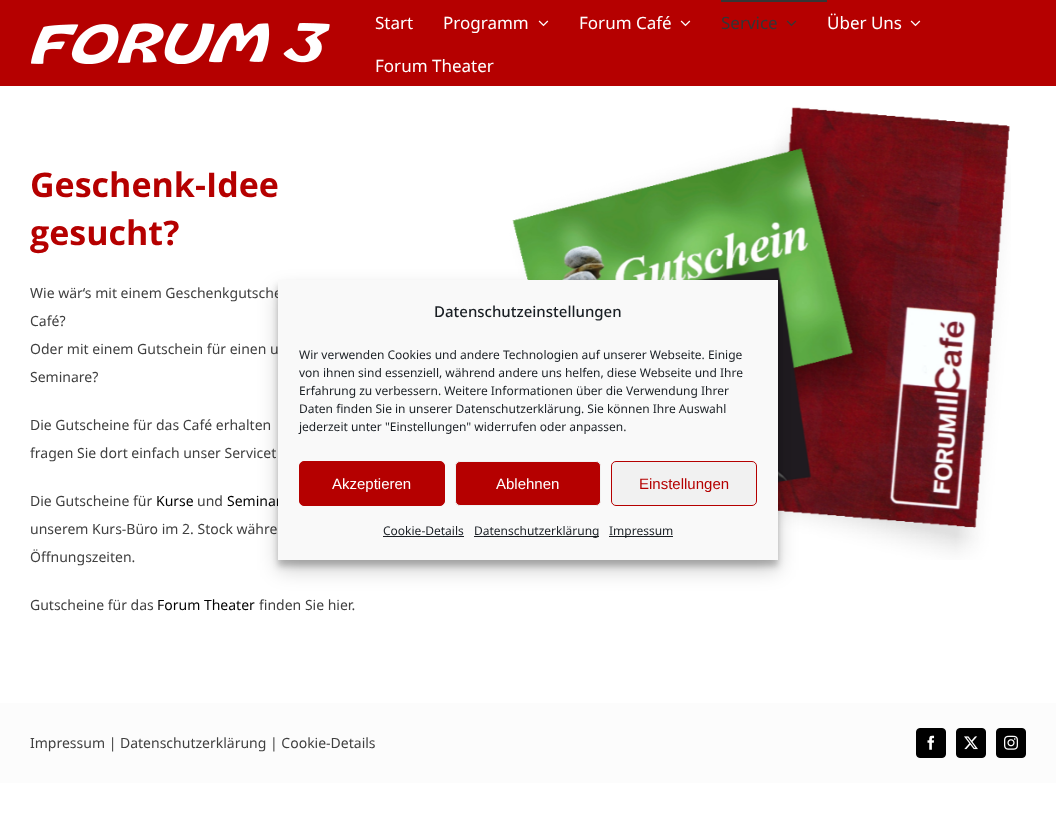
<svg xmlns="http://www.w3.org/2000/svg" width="1056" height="840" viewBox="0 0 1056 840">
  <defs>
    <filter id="blur1" x="-50%" y="-200%" width="200%" height="500%"><feGaussianBlur stdDeviation="3"/></filter>
    <filter id="blur2" x="-50%" y="-200%" width="200%" height="500%"><feGaussianBlur stdDeviation="10"/></filter>
  </defs>
  <rect width="100%" height="100%" fill="#ffffff"/>
  <rect x="0" y="0" width="1056" height="86" fill="#b50000"/>
  <image x="31" y="23" width="299" height="41" href="img1.png"/>
  <text x="375" y="29" font-family="Noto Sans" font-size="17" fill="#ffffff">Start</text>
  <text x="443" y="29" font-family="Noto Sans" font-size="17" fill="#ffffff">Programm</text>
  <image x="538" y="20" width="11" height="7" href="img2.png"/>
  <text x="579" y="29" font-family="Noto Sans" font-size="17" fill="#ffffff">Forum Café</text>
  <image x="680" y="20" width="11" height="7" href="img2.png"/>
  <rect x="721" y="0" width="106" height="2" fill="#353535"/>
  <text x="721" y="29" font-family="Noto Sans" font-size="17" fill="#353535">Service</text>
  <image x="786" y="20" width="11" height="7" href="img3.png"/>
  <text x="827" y="29" font-family="Noto Sans" font-size="17" fill="#ffffff">Über Uns</text>
  <image x="910" y="20" width="11" height="7" href="img2.png"/>
  <text x="375" y="72" font-family="Noto Sans" font-size="17" fill="#ffffff">Forum Theater</text>
  <text x="30" y="197" font-family="Open Sans" font-size="34" font-weight="bold" fill="#b50000">Geschenk-Idee</text>
  <text x="30" y="245" font-family="Open Sans" font-size="34" font-weight="bold" fill="#b50000">gesucht?</text>
  <text x="30" y="298" font-family="Noto Sans" font-size="14" fill="#3f3f3f">Wie wär‘s mit einem Geschenkgutsche</text>
  <text x="30" y="326" font-family="Noto Sans" font-size="14" fill="#3f3f3f">Café?</text>
  <text x="30" y="354" font-family="Noto Sans" font-size="14" fill="#3f3f3f">Oder mit einem Gutschein für einen u</text>
  <text x="30" y="382" font-family="Noto Sans" font-size="14" fill="#3f3f3f">Seminare?</text>
  <text x="30" y="430" font-family="Noto Sans" font-size="14" fill="#3f3f3f">Die Gutscheine für das Café erhalten</text>
  <text x="30" y="458" font-family="Noto Sans" font-size="14" fill="#3f3f3f">fragen Sie dort einfach unser Servicet</text>
  <text x="30" y="506" font-family="Noto Sans" font-size="14" fill="#3f3f3f">Die Gutscheine für</text>
  <text x="156" y="506" font-family="Noto Sans" font-size="14" fill="#000000">Kurse</text>
  <text x="197" y="506" font-family="Noto Sans" font-size="14" fill="#3f3f3f">und</text>
  <text x="227" y="506" font-family="Noto Sans" font-size="14" fill="#000000">Seminar</text>
  <text x="30" y="534" font-family="Noto Sans" font-size="14" fill="#3f3f3f">unserem Kurs-Büro im 2. Stock währe</text>
  <text x="30" y="562" font-family="Noto Sans" font-size="14" fill="#3f3f3f">Öffnungszeiten.</text>
  <text x="30" y="610" font-family="Noto Sans" font-size="14" fill="#3f3f3f">Gutscheine für das</text>
  <text x="157" y="610" font-family="Noto Sans" font-size="14" fill="#000000">Forum Theater</text>
  <text x="259" y="610" font-family="Noto Sans" font-size="14" fill="#3f3f3f">finden Sie hier.</text>
  <image x="507" y="107" width="504" height="453" href="img4.png"/>
  <rect x="0" y="703" width="1056" height="80" fill="#fcfcfc"/>
  <text x="30" y="748" font-family="Noto Sans" font-size="14" fill="#3f3f3f">Impressum | Datenschutzerklärung | Cookie-Details</text>
  <rect x="916.5" y="728.5" width="29" height="29" rx="3.5" fill="#000000" stroke="#000000"/>
  <image x="927" y="735" width="8" height="15" href="img5.png"/>
  <rect x="956.5" y="728.5" width="29" height="29" rx="3.5" fill="#000000" stroke="#000000"/>
  <image x="964" y="736" width="14" height="14" href="img6.png"/>
  <rect x="996.5" y="728.5" width="29" height="29" rx="3.5" fill="#000000" stroke="#000000"/>
  <image x="1004" y="735" width="14" height="15" href="img7.png"/>
  <rect x="278" y="286" width="500" height="280" fill="#000000" fill-opacity="0.23" filter="url(#blur1)"/>
  <rect x="278" y="290" width="500" height="280" fill="#000000" fill-opacity="0.19" filter="url(#blur2)"/>
  <rect x="278" y="280" width="500" height="280" fill="#f9f9f9"/>
  <text x="434" y="317" font-family="Noto Sans" font-size="15" font-weight="500" fill="#191e23">Datenschutzeinstellungen</text>
  <text x="299" y="359" font-family="Noto Sans" font-size="12" fill="#191e23">Wir verwenden Cookies und andere Technologien auf unserer Webseite. Einige</text>
  <text x="299" y="377" font-family="Noto Sans" font-size="12" fill="#191e23">von ihnen sind essenziell, während andere uns helfen, diese Webseite und Ihre</text>
  <text x="299" y="395" font-family="Noto Sans" font-size="12" fill="#191e23">Erfahrung zu verbessern. Weitere Informationen über die Verwendung Ihrer</text>
  <text x="299" y="413" font-family="Noto Sans" font-size="12" fill="#191e23">Daten finden Sie in unserer Datenschutzerklärung. Sie können Ihre Auswahl</text>
  <text x="299" y="431" font-family="Noto Sans" font-size="12" fill="#191e23">jederzeit unter "Einstellungen" widerrufen oder anpassen.</text>
  <rect x="299.5" y="461.5" width="145" height="44" rx="4.5" fill="#b50000" stroke="#b50000"/>
  <text x="332" y="489" font-family="Liberation Sans" font-size="15" fill="#ffffff">Akzeptieren</text>
  <rect x="455.5" y="461.5" width="145" height="44" rx="4.5" fill="#b50000" stroke="#f1f1f1"/>
  <text x="496" y="489" font-family="Liberation Sans" font-size="15" fill="#ffffff">Ablehnen</text>
  <rect x="611.5" y="461.5" width="145" height="44" rx="4.5" fill="#f1f1f1" stroke="#b50000"/>
  <text x="639" y="489" font-family="Liberation Sans" font-size="15" fill="#b50000">Einstellungen</text>
  <text x="383" y="535" font-family="Noto Sans" font-size="12" fill="#191e23">Cookie-Details</text>
  <rect x="383" y="536" width="81" height="1" fill="#191e23"/>
  <rect x="474" y="536" width="125" height="1" fill="#191e23"/>
  <text x="474" y="535" font-family="Noto Sans" font-size="12" fill="#191e23">Datenschutzerklärung</text>
  <rect x="609" y="536" width="64" height="1" fill="#191e23"/>
  <text x="609" y="535" font-family="Noto Sans" font-size="12" fill="#191e23">Impressum</text>
</svg>
